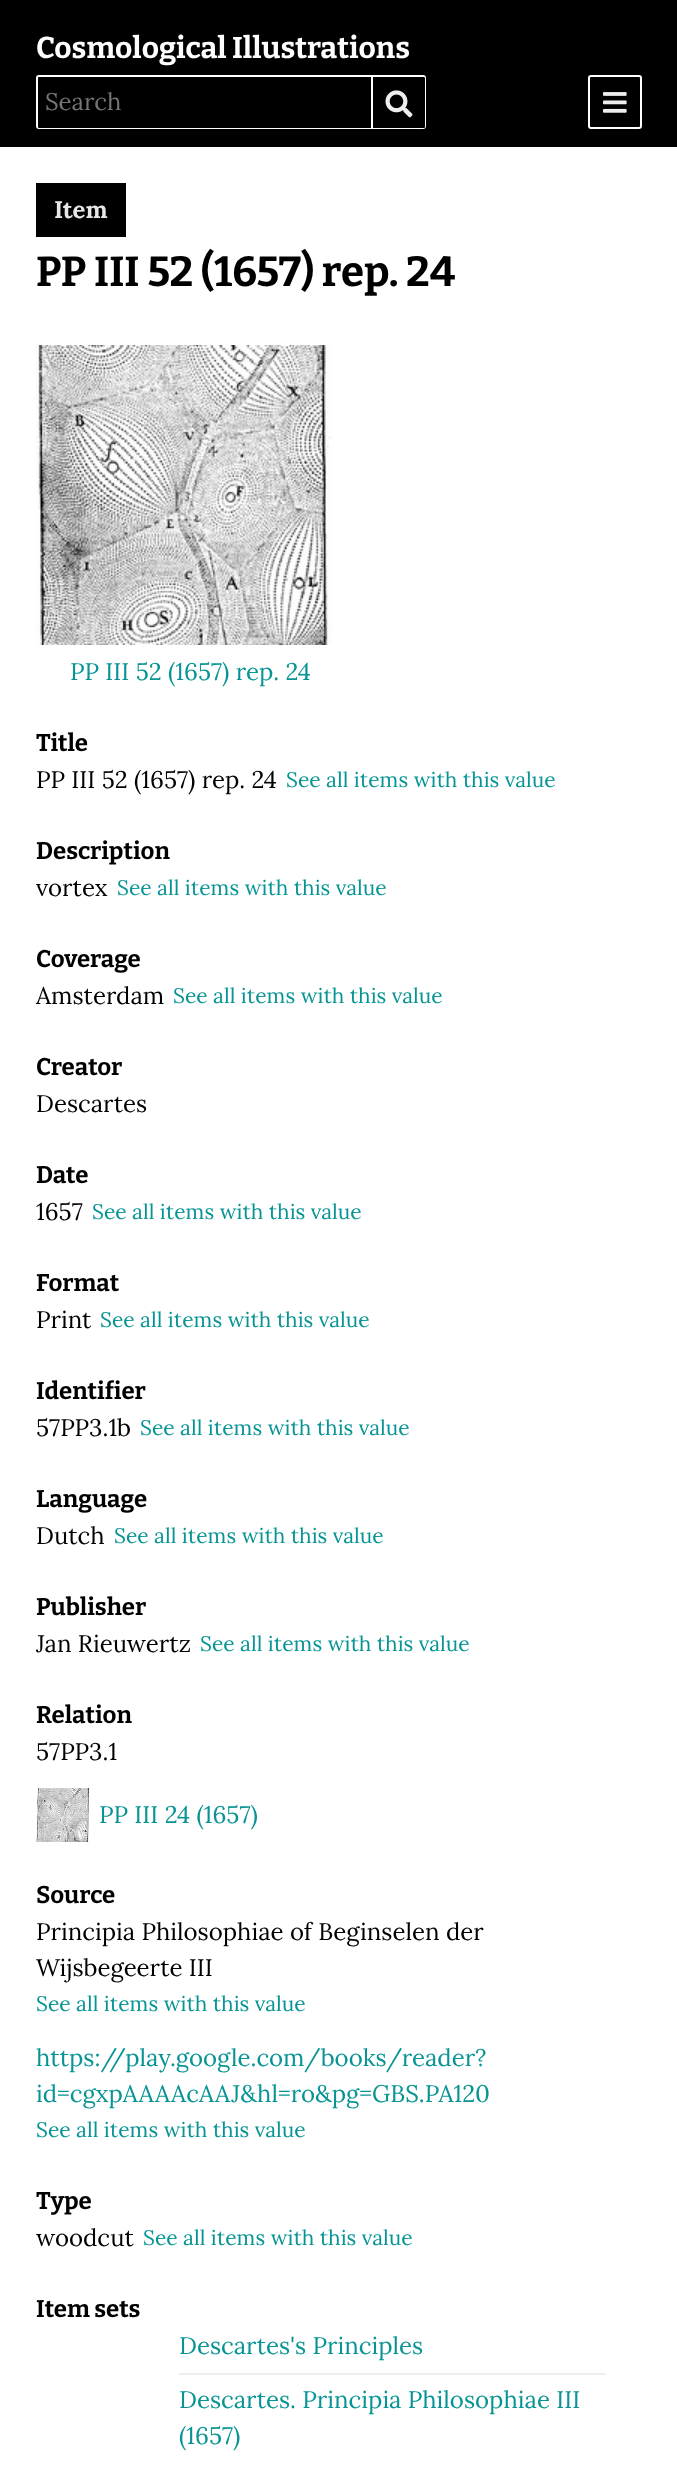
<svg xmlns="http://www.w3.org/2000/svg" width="677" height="2492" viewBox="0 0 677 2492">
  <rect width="100%" height="100%" fill="#000000"/>
  <text x="36" y="58" font-family="Bitter" font-size="30" font-weight="100" fill="#ffffff">Cosmological Illustrations</text>
  <rect x="37" y="76" width="388" height="52" rx="2" fill="none" stroke="#ffffff" stroke-width="2"/>
  <path d="M39.5 77H371V128H39.5C38.5 128 38 127.5 38 126.5V78.5C38 77.5 38.5 77 39.5 77Z" fill="#000000"/>
  <text x="45" y="110" font-family="Lora" font-size="24" fill="#757575">Search</text>
  <path d="M372 77H423.5C424.5 77 425 77.5 425 78.5V126.5C425 127.5 424.5 128 423.5 128H372Z" fill="#000000"/>
  <rect x="371" y="77" width="2" height="51" fill="#ffffff"/>
  <image x="385" y="90" width="28" height="28" href="img1.png"/>
  <rect x="589" y="76" width="52" height="52" rx="2" fill="none" stroke="#ffffff" stroke-width="2"/>
  <image x="603" y="92" width="24" height="21" href="img2.png"/>
  <rect x="0" y="147" width="677" height="2345" fill="#ffffff"/>
  <rect x="36" y="183" width="90" height="54" fill="#000000"/>
  <text x="54" y="218" font-family="Lora" font-size="24" font-weight="bold" fill="#e7e7e7">Item</text>
  <text x="36" y="286" font-family="Bitter" font-size="42" font-weight="100" fill="#000000">PP III 52 (1657) rep. 24</text>
  <image x="36" y="345" width="297" height="300" href="img3.png"/>
  <text x="70" y="680" font-family="Lora" font-size="24" fill="#089494">PP III 52 (1657) rep. 24</text>
  <text x="36" y="751" font-family="Bitter" font-size="24" font-weight="100" fill="#000000">Title</text>
  <text x="36" y="788" font-family="Lora" font-size="24" fill="#000000">PP III 52 (1657) rep. 24</text>
  <text x="286" y="787" font-family="Lora" font-size="21" fill="#089494">See all items with this value</text>
  <text x="36" y="859" font-family="Bitter" font-size="24" font-weight="100" fill="#000000">Description</text>
  <text x="36" y="896" font-family="Lora" font-size="24" fill="#000000">vortex</text>
  <text x="117" y="895" font-family="Lora" font-size="21" fill="#089494">See all items with this value</text>
  <text x="36" y="967" font-family="Bitter" font-size="24" font-weight="100" fill="#000000">Coverage</text>
  <text x="36" y="1004" font-family="Lora" font-size="24" fill="#000000">Amsterdam</text>
  <text x="173" y="1003" font-family="Lora" font-size="21" fill="#089494">See all items with this value</text>
  <text x="36" y="1075" font-family="Bitter" font-size="24" font-weight="100" fill="#000000">Creator</text>
  <text x="36" y="1112" font-family="Lora" font-size="24" fill="#000000">Descartes</text>
  <text x="36" y="1183" font-family="Bitter" font-size="24" font-weight="100" fill="#000000">Date</text>
  <text x="36" y="1220" font-family="Lora" font-size="24" fill="#000000">1657</text>
  <text x="92" y="1219" font-family="Lora" font-size="21" fill="#089494">See all items with this value</text>
  <text x="36" y="1291" font-family="Bitter" font-size="24" font-weight="100" fill="#000000">Format</text>
  <text x="36" y="1328" font-family="Lora" font-size="24" fill="#000000">Print</text>
  <text x="100" y="1327" font-family="Lora" font-size="21" fill="#089494">See all items with this value</text>
  <text x="36" y="1399" font-family="Bitter" font-size="24" font-weight="100" fill="#000000">Identifier</text>
  <text x="36" y="1436" font-family="Lora" font-size="24" fill="#000000">57PP3.1b</text>
  <text x="140" y="1435" font-family="Lora" font-size="21" fill="#089494">See all items with this value</text>
  <text x="36" y="1507" font-family="Bitter" font-size="24" font-weight="100" fill="#000000">Language</text>
  <text x="36" y="1544" font-family="Lora" font-size="24" fill="#000000">Dutch</text>
  <text x="114" y="1543" font-family="Lora" font-size="21" fill="#089494">See all items with this value</text>
  <text x="36" y="1615" font-family="Bitter" font-size="24" font-weight="100" fill="#000000">Publisher</text>
  <text x="36" y="1652" font-family="Lora" font-size="24" fill="#000000">Jan Rieuwertz</text>
  <text x="200" y="1651" font-family="Lora" font-size="21" fill="#089494">See all items with this value</text>
  <text x="36" y="1723" font-family="Bitter" font-size="24" font-weight="100" fill="#000000">Relation</text>
  <text x="36" y="1760" font-family="Lora" font-size="24" fill="#000000">57PP3.1</text>
  <image x="36" y="1788" width="54" height="54" href="img4.png"/>
  <text x="99" y="1823" font-family="Lora" font-size="24" fill="#089494">PP III 24 (1657)</text>
  <text x="36" y="1903" font-family="Bitter" font-size="24" font-weight="100" fill="#000000">Source</text>
  <text x="36" y="1940" font-family="Lora" font-size="24" fill="#000000">Principia Philosophiae of Beginselen der</text>
  <text x="36" y="1976" font-family="Lora" font-size="24" fill="#000000">Wijsbegeerte III</text>
  <text x="36" y="2011" font-family="Lora" font-size="21" fill="#089494">See all items with this value</text>
  <text x="36" y="2066" font-family="Lora" font-size="24" fill="#089494">https://play.google.com/books/reader?</text>
  <text x="36" y="2102" font-family="Lora" font-size="24" fill="#089494">id=cgxpAAAAcAAJ&amp;hl=ro&amp;pg=GBS.PA120</text>
  <text x="36" y="2137" font-family="Lora" font-size="21" fill="#089494">See all items with this value</text>
  <text x="36" y="2209" font-family="Bitter" font-size="24" font-weight="100" fill="#000000">Type</text>
  <text x="36" y="2246" font-family="Lora" font-size="24" fill="#000000">woodcut</text>
  <text x="143" y="2245" font-family="Lora" font-size="21" fill="#089494">See all items with this value</text>
  <text x="36" y="2317" font-family="Bitter" font-size="24" font-weight="100" fill="#000000">Item sets</text>
  <text x="179" y="2354" font-family="Lora" font-size="24" fill="#089494">Descartes's Principles</text>
  <rect x="179" y="2373" width="427" height="2" fill="#eeeeee"/>
  <text x="179" y="2408" font-family="Lora" font-size="24" fill="#089494">Descartes. Principia Philosophiae III</text>
  <text x="179" y="2444" font-family="Lora" font-size="24" fill="#089494">(1657)</text>
</svg>
